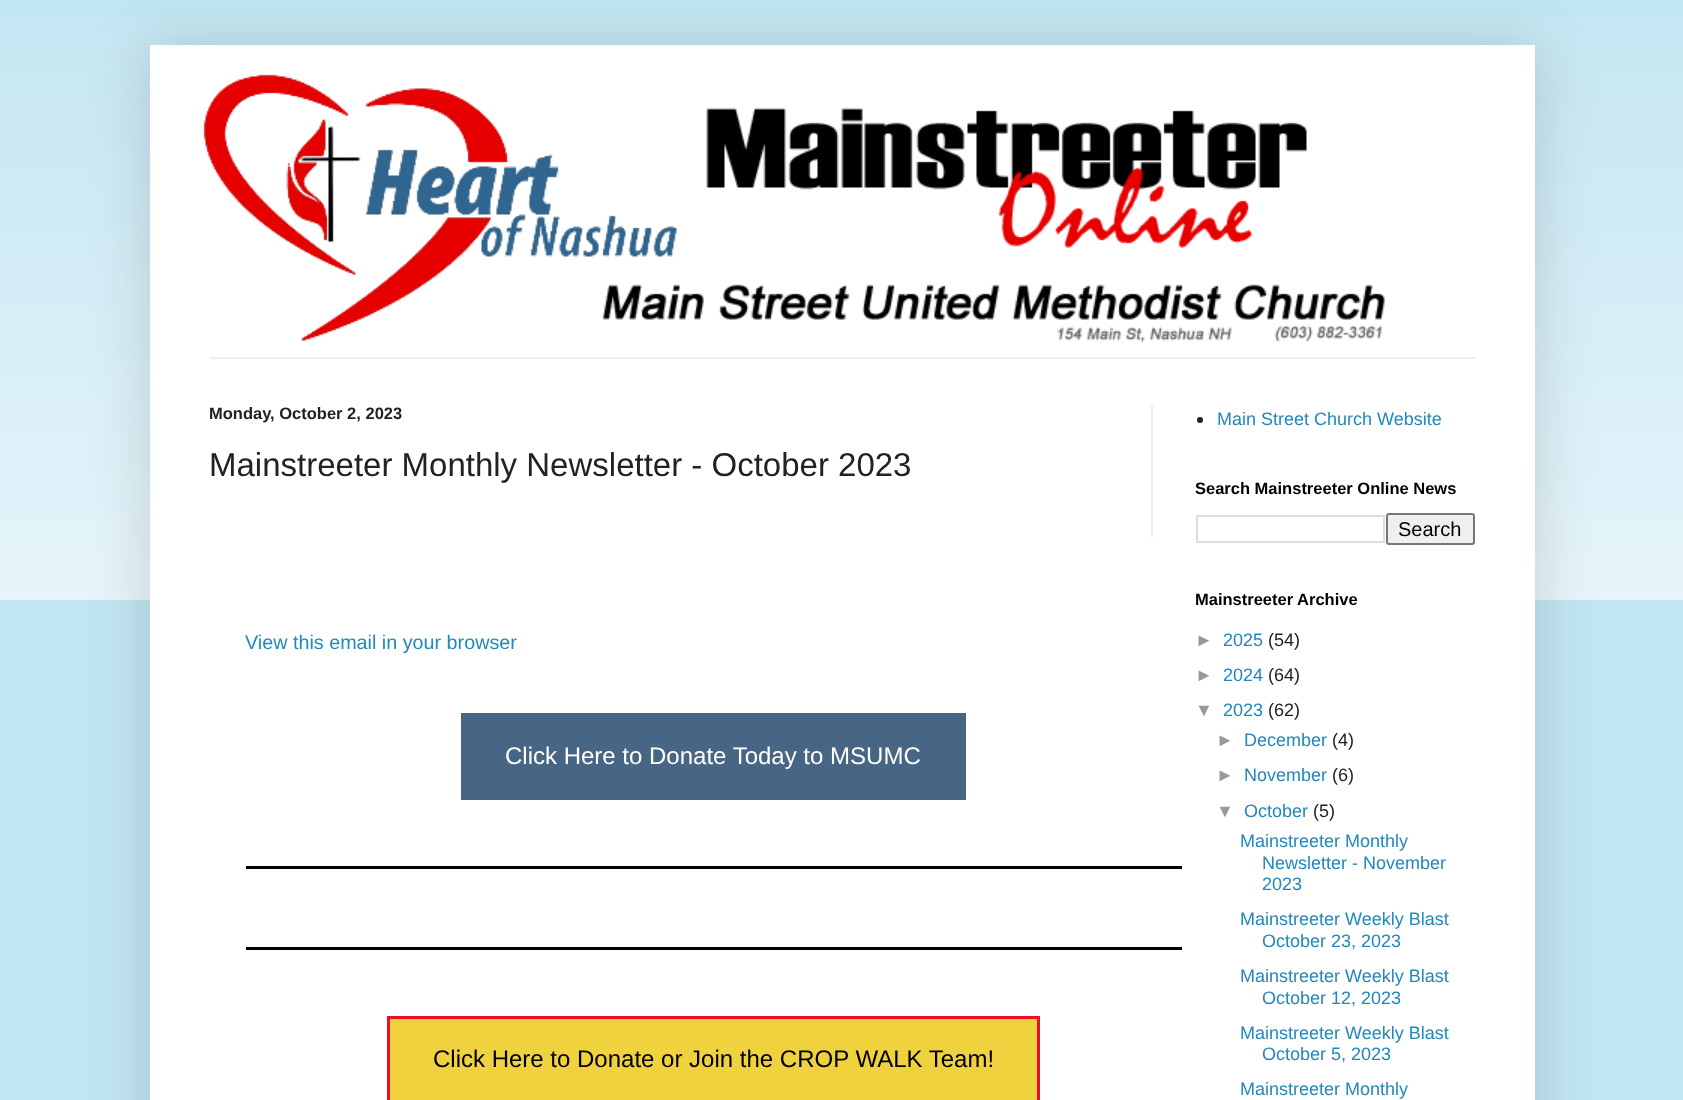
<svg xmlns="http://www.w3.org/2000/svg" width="1683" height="1100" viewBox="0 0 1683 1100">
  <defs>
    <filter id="blur1" x="-50%" y="-200%" width="200%" height="500%"><feGaussianBlur stdDeviation="30"/></filter>
  </defs>
  <rect width="100%" height="100%" fill="#c1e5f2"/>
  <image x="0" y="15" width="1683" height="585" href="img1.png"/>
  <rect x="150" y="45" width="1385" height="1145" fill="#000000" fill-opacity="0.15" filter="url(#blur1)"/>
  <rect x="150" y="45" width="1385" height="1055" fill="#ffffff"/>
  <image x="203" y="74" width="1182" height="269" href="img2.png"/>
  <rect x="210" y="357" width="1265" height="2" fill="#eeeeee"/>
  <rect x="1151" y="404" width="2" height="133" fill="#eeeeee"/>
  <text x="209" y="419" font-family="Liberation Sans" font-size="16.5" font-weight="bold" fill="#222222">Monday, October 2, 2023</text>
  <text x="209" y="476" font-family="Liberation Sans" font-size="33" fill="#222222">Mainstreeter Monthly Newsletter - October 2023</text>
  <text x="245" y="649" font-family="Liberation Sans" font-size="19.75" fill="#2288bb">View this email in your browser</text>
  <rect x="461" y="713" width="505" height="87" fill="#476584"/>
  <text x="505" y="764" font-family="Liberation Sans" font-size="24" fill="#ffffff">Click Here to Donate Today to MSUMC</text>
  <rect x="246" y="866" width="936" height="3" fill="#000000"/>
  <rect x="246" y="947" width="936" height="3" fill="#000000"/>
  <rect x="388.5" y="1017.5" width="650" height="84" fill="#f0d13e" stroke="#ed0f25" stroke-width="3"/>
  <text x="433" y="1067" font-family="Liberation Sans" font-size="24" fill="#000000">Click Here to Donate or Join the CROP WALK Team!</text>
  <circle cx="1200" cy="420" r="3" fill="#222222"/>
  <text x="1217" y="425" font-family="Liberation Sans" font-size="18" fill="#2288bb">Main Street Church Website</text>
  <text x="1195" y="494" font-family="Liberation Sans" font-size="16.5" font-weight="bold" fill="#000000">Search Mainstreeter Online News</text>
  <rect x="1197" y="516" width="187" height="26" fill="none" stroke="#dddddd" stroke-width="2"/>
  <rect x="1387" y="514" width="87" height="30" rx="2" fill="#efefef" stroke="#767676" stroke-width="2"/>
  <text x="1398" y="536" font-family="Liberation Sans" font-size="20" fill="#000000">Search</text>
  <text x="1195" y="605" font-family="Liberation Sans" font-size="16.5" font-weight="bold" fill="#000000">Mainstreeter Archive</text>
  <text x="1195" y="646" font-family="Liberation Sans" font-size="18" fill="#999999">►</text>
  <text x="1223" y="646" font-family="Liberation Sans" font-size="18" fill="#2288bb">2025</text>
  <text x="1268" y="646" font-family="Liberation Sans" font-size="18" fill="#222222">(54)</text>
  <text x="1195" y="681" font-family="Liberation Sans" font-size="18" fill="#999999">►</text>
  <text x="1223" y="681" font-family="Liberation Sans" font-size="18" fill="#2288bb">2024</text>
  <text x="1268" y="681" font-family="Liberation Sans" font-size="18" fill="#222222">(64)</text>
  <text x="1195" y="716" font-family="Liberation Sans" font-size="18" fill="#999999">▼</text>
  <text x="1223" y="716" font-family="Liberation Sans" font-size="18" fill="#2288bb">2023</text>
  <text x="1268" y="716" font-family="Liberation Sans" font-size="18" fill="#222222">(62)</text>
  <text x="1216" y="746" font-family="Liberation Sans" font-size="18" fill="#999999">►</text>
  <text x="1244" y="746" font-family="Liberation Sans" font-size="18" fill="#2288bb">December</text>
  <text x="1332" y="746" font-family="Liberation Sans" font-size="18" fill="#222222">(4)</text>
  <text x="1216" y="781" font-family="Liberation Sans" font-size="18" fill="#999999">►</text>
  <text x="1244" y="781" font-family="Liberation Sans" font-size="18" fill="#2288bb">November</text>
  <text x="1332" y="781" font-family="Liberation Sans" font-size="18" fill="#222222">(6)</text>
  <text x="1216" y="817" font-family="Liberation Sans" font-size="18" fill="#999999">▼</text>
  <text x="1244" y="817" font-family="Liberation Sans" font-size="18" fill="#2288bb">October</text>
  <text x="1313" y="817" font-family="Liberation Sans" font-size="18" fill="#222222">(5)</text>
  <text x="1240" y="847" font-family="Liberation Sans" font-size="18" fill="#2288bb">Mainstreeter Monthly</text>
  <text x="1262" y="869" font-family="Liberation Sans" font-size="18" fill="#2288bb">Newsletter - November</text>
  <text x="1262" y="890" font-family="Liberation Sans" font-size="18" fill="#2288bb">2023</text>
  <text x="1240" y="925" font-family="Liberation Sans" font-size="18" fill="#2288bb">Mainstreeter Weekly Blast</text>
  <text x="1262" y="947" font-family="Liberation Sans" font-size="18" fill="#2288bb">October 23, 2023</text>
  <text x="1240" y="982" font-family="Liberation Sans" font-size="18" fill="#2288bb">Mainstreeter Weekly Blast</text>
  <text x="1262" y="1004" font-family="Liberation Sans" font-size="18" fill="#2288bb">October 12, 2023</text>
  <text x="1240" y="1039" font-family="Liberation Sans" font-size="18" fill="#2288bb">Mainstreeter Weekly Blast</text>
  <text x="1262" y="1060" font-family="Liberation Sans" font-size="18" fill="#2288bb">October 5, 2023</text>
  <text x="1240" y="1095" font-family="Liberation Sans" font-size="18" fill="#2288bb">Mainstreeter Monthly</text>
</svg>
